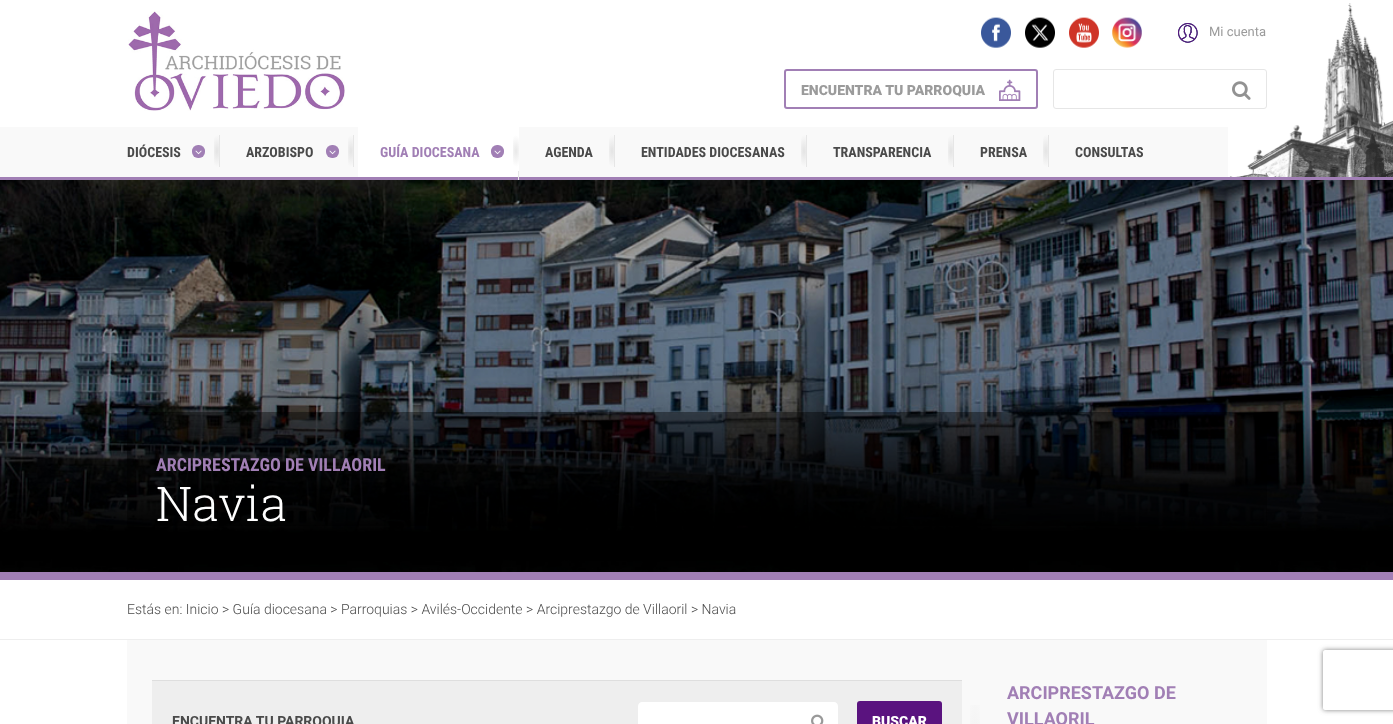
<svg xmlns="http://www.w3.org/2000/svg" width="1393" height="724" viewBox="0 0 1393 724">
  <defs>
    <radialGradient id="g1" gradientUnits="userSpaceOnUse" cx="0" cy="0" r="1" gradientTransform="matrix(6 0 0 16 217 151)"><stop offset="0" stop-color="#e3e3e3"/><stop offset="1" stop-color="#f9f9f9"/></radialGradient>
    <radialGradient id="g2" gradientUnits="userSpaceOnUse" cx="0" cy="0" r="1" gradientTransform="matrix(6 0 0 16 351 151)"><stop offset="0" stop-color="#e3e3e3"/><stop offset="1" stop-color="#f9f9f9"/></radialGradient>
    <radialGradient id="g3" gradientUnits="userSpaceOnUse" cx="0" cy="0" r="1" gradientTransform="matrix(6 0 0 16 516 151)"><stop offset="0" stop-color="#e8e8e8"/><stop offset="1" stop-color="#ffffff"/></radialGradient>
    <radialGradient id="g4" gradientUnits="userSpaceOnUse" cx="0" cy="0" r="1" gradientTransform="matrix(6 0 0 16 612 151)"><stop offset="0" stop-color="#e3e3e3"/><stop offset="1" stop-color="#f9f9f9"/></radialGradient>
    <radialGradient id="g5" gradientUnits="userSpaceOnUse" cx="0" cy="0" r="1" gradientTransform="matrix(6 0 0 16 804 151)"><stop offset="0" stop-color="#e3e3e3"/><stop offset="1" stop-color="#f9f9f9"/></radialGradient>
    <radialGradient id="g6" gradientUnits="userSpaceOnUse" cx="0" cy="0" r="1" gradientTransform="matrix(6 0 0 16 951 151)"><stop offset="0" stop-color="#e3e3e3"/><stop offset="1" stop-color="#f9f9f9"/></radialGradient>
    <radialGradient id="g7" gradientUnits="userSpaceOnUse" cx="0" cy="0" r="1" gradientTransform="matrix(6 0 0 16 1046 151)"><stop offset="0" stop-color="#e3e3e3"/><stop offset="1" stop-color="#f9f9f9"/></radialGradient>
    <radialGradient id="g8" gradientUnits="userSpaceOnUse" cx="0" cy="0" r="1" gradientTransform="matrix(15 0 0 250 975 930)"><stop offset="0" stop-color="#e0e0e0"/><stop offset="1" stop-color="#f9f9f9"/></radialGradient>
    <clipPath id="clip1"><path d="M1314 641H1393V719H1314ZM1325 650H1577C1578 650 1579 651 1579 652V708C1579 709 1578 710 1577 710H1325C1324 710 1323 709 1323 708V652C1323 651 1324 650 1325 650Z" clip-rule="evenodd"/></clipPath>
    <filter id="blur1" x="-50%" y="-200%" width="200%" height="500%"><feGaussianBlur stdDeviation="2.5"/></filter>
  </defs>
  <rect width="100%" height="100%" fill="#ffffff"/>
  <rect x="0" y="177" width="1393" height="3" fill="#a17fb5"/>
  <image x="128" y="11" width="217" height="100" href="img1.png"/>
  <image x="981" y="17" width="30" height="31" href="img2.png"/>
  <image x="1025" y="17" width="30" height="31" href="img3.png"/>
  <image x="1069" y="17" width="30" height="31" href="img4.png"/>
  <image x="1112" y="17" width="30" height="31" href="img5.png"/>
  <image x="1178" y="23" width="20" height="20" href="img6.png"/>
  <image x="1228" y="3" width="165" height="174" href="img9.png"/>
  <text x="1209" y="36" font-family="Roboto" font-size="13" fill="#9b9b9b">Mi cuenta</text>
  <rect x="785" y="70" width="252" height="38" rx="2" fill="none" stroke="#a17fb5" stroke-width="2"/>
  <text x="801" y="95" font-family="Roboto" font-size="14" font-weight="900" fill="#9b9b9b">ENCUENTRA TU PARROQUIA</text>
  <image x="999" y="79" width="22" height="22" href="img7.png"/>
  <rect x="1053.5" y="69.5" width="213" height="39" rx="2.5" fill="none" stroke="#e6e6e6"/>
  <image x="1232" y="81" width="19" height="19" href="img8.png"/>
  <rect x="0" y="127" width="1228" height="50" fill="#f9f9f9"/>
  <text x="127" y="157" font-family="Roboto Condensed" font-size="14" font-weight="bold" fill="#4a4a4a">DIÓCESIS</text>
  <rect x="192" y="145" width="13" height="13" rx="6" fill="#a17fb5"/>
  <image x="195" y="150" width="7" height="5" href="img10.png"/>
  <rect x="214" y="135" width="5" height="32" fill="url(#g1)"/>
  <rect x="219" y="135" width="1" height="32" fill="#e6e6e6"/>
  <text x="246" y="157" font-family="Roboto Condensed" font-size="14" font-weight="bold" fill="#4a4a4a">ARZOBISPO</text>
  <rect x="326" y="145" width="13" height="13" rx="6" fill="#a17fb5"/>
  <image x="329" y="150" width="7" height="5" href="img10.png"/>
  <rect x="348" y="135" width="5" height="32" fill="url(#g2)"/>
  <rect x="353" y="135" width="1" height="32" fill="#e6e6e6"/>
  <rect x="358" y="127" width="161" height="50" fill="#ffffff"/>
  <text x="380" y="157" font-family="Roboto Condensed" font-size="14" font-weight="bold" fill="#a17fb5">GUÍA DIOCESANA</text>
  <rect x="491" y="145" width="13" height="13" rx="6" fill="#a17fb5"/>
  <image x="494" y="150" width="7" height="5" href="img10.png"/>
  <rect x="513" y="135" width="6" height="32" fill="url(#g3)"/>
  <path d="M519 171V203L518 199V171Z" fill="#e6e6e6"/>
  <text x="545" y="157" font-family="Roboto Condensed" font-size="14" font-weight="bold" fill="#4a4a4a">AGENDA</text>
  <rect x="609" y="135" width="5" height="32" fill="url(#g4)"/>
  <rect x="614" y="135" width="1" height="32" fill="#e6e6e6"/>
  <text x="641" y="157" font-family="Roboto Condensed" font-size="14" font-weight="bold" fill="#4a4a4a">ENTIDADES DIOCESANAS</text>
  <rect x="801" y="135" width="5" height="32" fill="url(#g5)"/>
  <rect x="806" y="135" width="1" height="32" fill="#e6e6e6"/>
  <text x="833" y="157" font-family="Roboto Condensed" font-size="14" font-weight="bold" fill="#4a4a4a">TRANSPARENCIA</text>
  <rect x="948" y="135" width="5" height="32" fill="url(#g6)"/>
  <rect x="953" y="135" width="1" height="32" fill="#e6e6e6"/>
  <text x="980" y="157" font-family="Roboto Condensed" font-size="14" font-weight="bold" fill="#4a4a4a">PRENSA</text>
  <rect x="1043" y="135" width="5" height="32" fill="url(#g7)"/>
  <rect x="1048" y="135" width="1" height="32" fill="#e6e6e6"/>
  <text x="1075" y="157" font-family="Roboto Condensed" font-size="14" font-weight="bold" fill="#4a4a4a">CONSULTAS</text>
  <image x="0" y="180" width="1393" height="392" href="img11.png"/>
  <rect x="0" y="572" width="1393" height="8" fill="#a17fb5"/>
  <rect x="127" y="412" width="1140" height="114" fill="#000000" fill-opacity="0.4"/>
  <text x="156" y="471" font-family="Roboto Condensed" font-size="18" font-weight="bold" fill="#a17fb5">ARCIPRESTAZGO DE VILLAORIL</text>
  <text x="156" y="521" font-family="Roboto Slab" font-size="48" font-weight="300" fill="#ffffff">Navia</text>
  <rect x="0" y="639" width="1393" height="1" fill="#eeeeee"/>
  <text x="127" y="614" font-family="Roboto" font-size="14" font-weight="300" fill="#4a4a4a">Estás en: Inicio &gt; Guía diocesana &gt; Parroquias &gt; Avilés-Occidente &gt; Arciprestazgo de Villaoril &gt; Navia</text>
  <rect x="127" y="640" width="1140" height="84" fill="#f9f9f9"/>
  <rect x="152" y="681" width="810" height="43" fill="#eeeeee"/>
  <rect x="152" y="680" width="810" height="1" fill="#dedede"/>
  <text x="172" y="726" font-family="Roboto" font-size="14" font-weight="bold" fill="#4a4a4a">ENCUENTRA TU PARROQUIA</text>
  <path d="M642 702H799V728H642C640 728 638 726 638 724V706C638 704 640 702 642 702Z" fill="#ffffff"/>
  <path d="M799 702H834C836 702 838 704 838 706V724C838 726 836 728 834 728H799Z" fill="#ffffff"/>
  <image x="811" y="714" width="13" height="10" href="img12.png"/>
  <rect x="857" y="701" width="85" height="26" rx="3" fill="#5a137f"/>
  <text x="872" y="726" font-family="Roboto" font-size="14" font-weight="900" fill="#ffffff">BUSCAR</text>
  <rect x="970" y="705" width="10" height="19" fill="url(#g8)"/>
  <text x="1007" y="699" font-family="Roboto" font-size="18" font-weight="bold" fill="#a17fb5">ARCIPRESTAZGO DE</text>
  <text x="1007" y="725" font-family="Roboto" font-size="18" font-weight="bold" fill="#a17fb5">VILLAORIL</text>
  <g clip-path="url(#clip1)">
    <rect x="1323" y="650" width="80" height="60" rx="2" fill="#808080" filter="url(#blur1)"/>
  </g>
</svg>
